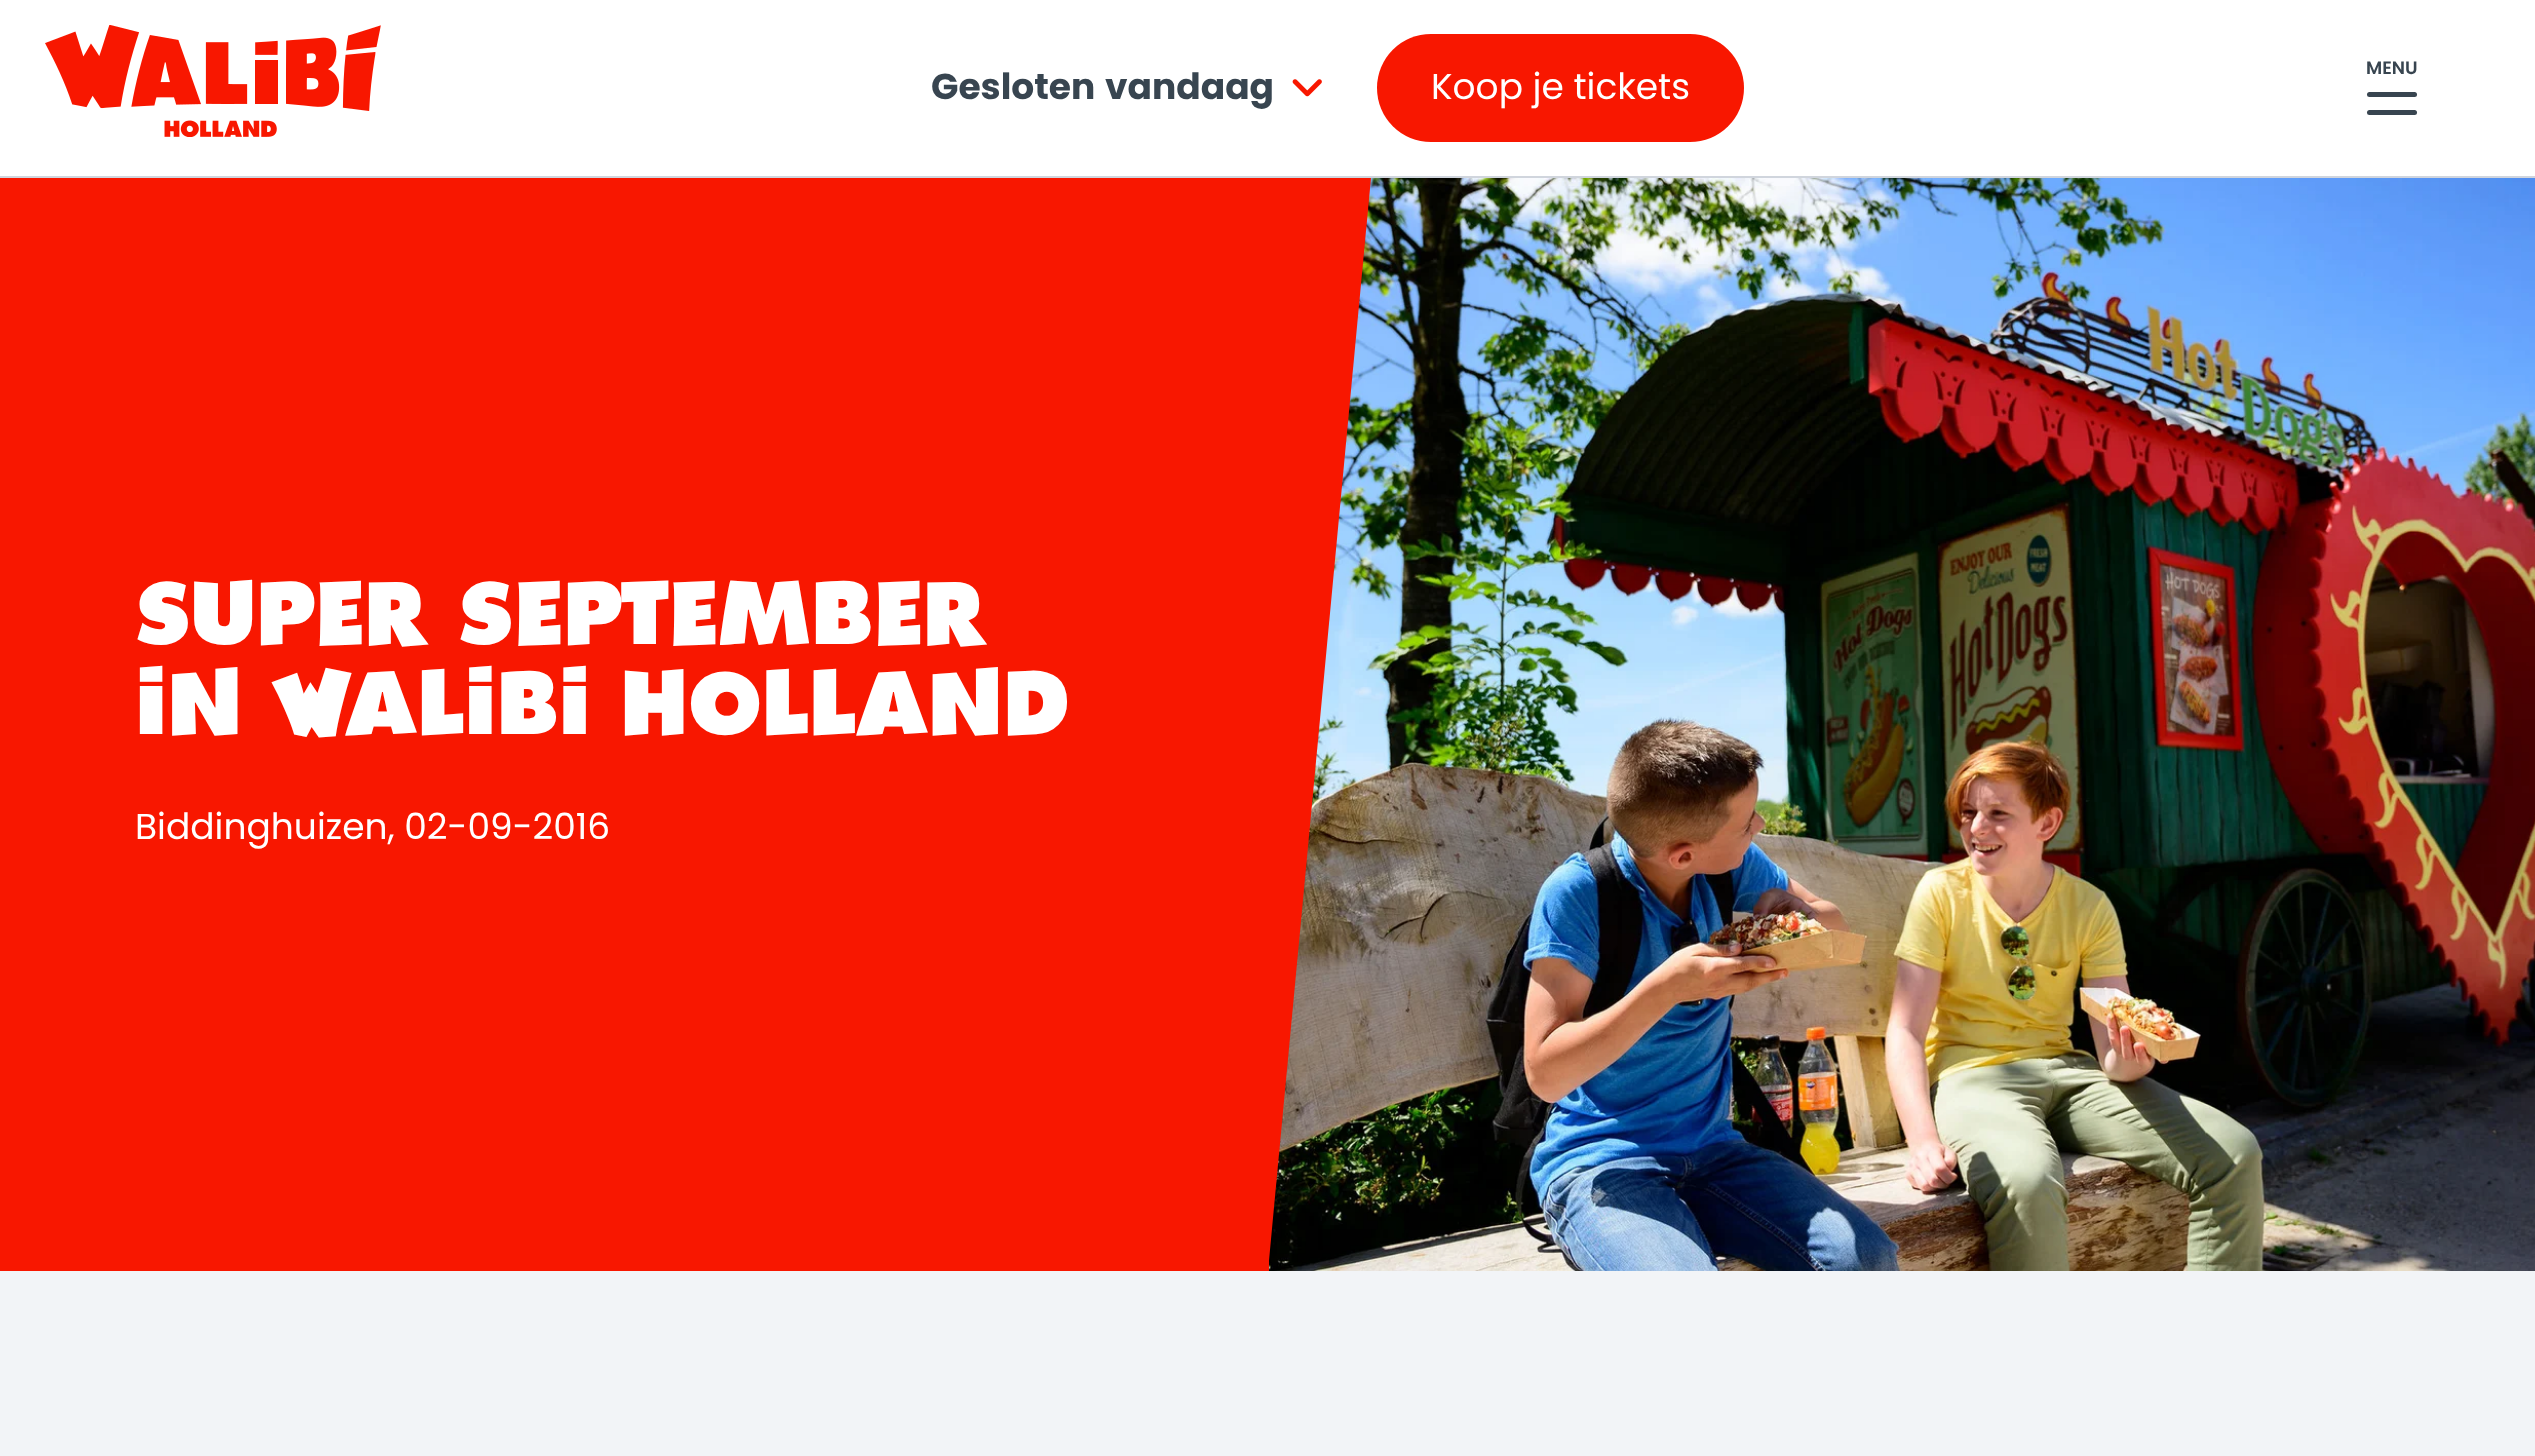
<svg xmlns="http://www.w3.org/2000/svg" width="2535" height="1456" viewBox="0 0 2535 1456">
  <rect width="100%" height="100%" fill="#ffffff"/>
  <rect x="0" y="176" width="2535" height="2" fill="#d0d5dd"/>
  <image x="45" y="25" width="336" height="112" href="img1.png"/>
  <text x="2366" y="74" font-family="Poppins" font-size="18" font-weight="600" fill="#384550">MENU</text>
  <rect x="2367" y="92" width="50" height="5" rx="2.5" fill="#384550"/>
  <rect x="2367" y="110" width="50" height="5" rx="2.5" fill="#384550"/>
  <text x="931" y="99" font-family="Poppins" font-size="36" font-weight="bold" fill="#384550">Gesloten</text>
  <text x="1105" y="99" font-family="Poppins" font-size="36" font-weight="bold" fill="#384550">vandaag</text>
  <image x="1292" y="79" width="30" height="18" href="img2.png"/>
  <rect x="1377" y="34" width="367" height="108" rx="54" fill="#f81700"/>
  <text x="1431" y="99" font-family="Poppins" font-size="36" fill="#ffffff">Koop je tickets</text>
  <rect x="0" y="178" width="1269" height="1093" fill="#f81700"/>
  <text x="135" y="644" font-family="'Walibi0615'" font-size="81.5" font-weight="bold" fill="#ffffff">SUPER SEPTEMBER</text>
  <text x="135" y="734" font-family="'Walibi0615'" font-size="81.5" font-weight="bold" fill="#ffffff">IN WALIBI HOLLAND</text>
  <text x="135" y="839" font-family="Poppins" font-size="36" fill="#ffffff">Biddinghuizen, 02-09-2016</text>
  <image x="1269" y="178" width="1266" height="1093" href="img3.png"/>
  <path d="M1267 178V1271H1268L1371 178Z" fill="#f81700"/>
  <rect x="0" y="1271" width="2535" height="185" fill="#f2f4f7"/>
</svg>
